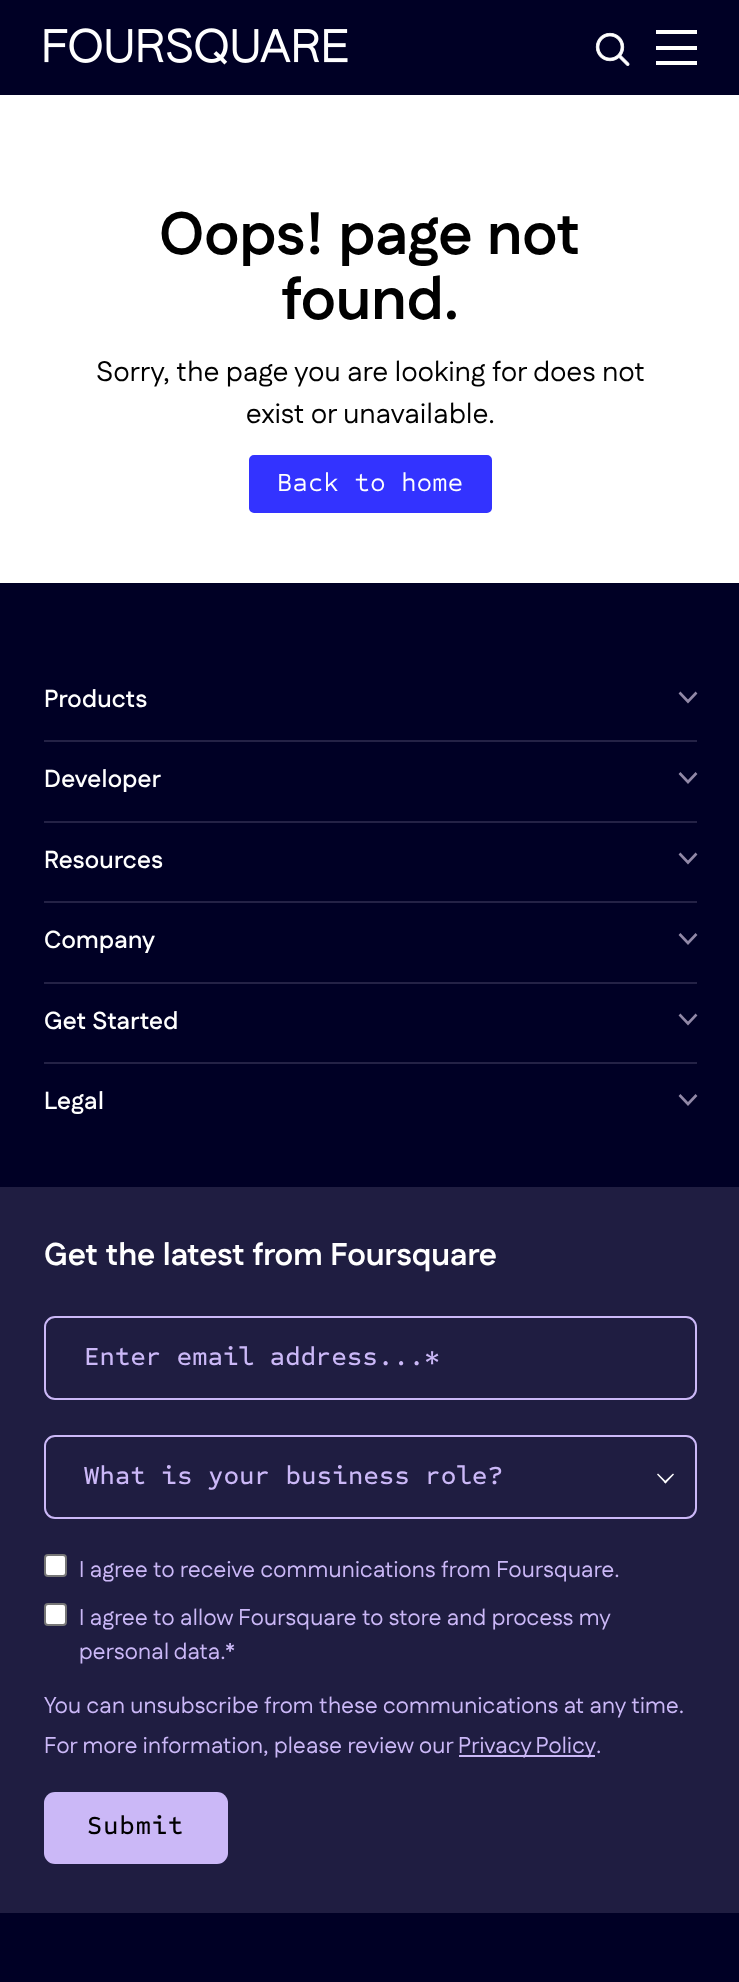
<svg xmlns="http://www.w3.org/2000/svg" width="739" height="1982" viewBox="0 0 739 1982">
  <rect width="100%" height="100%" fill="#ffffff"/>
  <rect x="0" y="0" width="739" height="95" fill="#000025"/>
  <image x="44" y="28" width="304" height="37" href="img1.png"/>
  <image x="595" y="32" width="35" height="34" href="img2.png"/>
  <rect x="656" y="30" width="41" height="4" fill="#ffffff"/>
  <rect x="656" y="46" width="41" height="4" fill="#ffffff"/>
  <rect x="656" y="61" width="41" height="4" fill="#ffffff"/>
  <text x="159" y="254" font-family="Fustat" font-size="59.5" font-weight="bold" fill="#000000">Oops! page not</text>
  <text x="281" y="319" font-family="Fustat" font-size="59.5" font-weight="bold" fill="#000000">found.</text>
  <text x="96" y="381" font-family="Fustat" font-size="28" letter-spacing="0.3" fill="#000000">Sorry, the page you are looking for does not</text>
  <text x="246" y="423" font-family="Fustat" font-size="28" letter-spacing="0.3" fill="#000000">exist or unavailable.</text>
  <rect x="250" y="456" width="241" height="56" rx="4" fill="#3333ff" stroke="#3333ff" stroke-width="2"/>
  <text x="277" y="491" font-family="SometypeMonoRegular" font-size="26.25" letter-spacing="0.3" fill="#ffffff">Back to home</text>
  <rect x="0" y="583" width="739" height="604" fill="#000025"/>
  <text x="44" y="707" font-family="Fustat" font-size="24.5" font-weight="600" letter-spacing="0.25" fill="#ffffff">Products</text>
  <path d="M679.5 692.5L688 701.5L696.5 692.5" fill="none" stroke="#9188a7" stroke-width="2.6"/>
  <rect x="44" y="740" width="653" height="2" fill="#242246"/>
  <text x="44" y="787" font-family="Fustat" font-size="24.5" font-weight="600" letter-spacing="0.25" fill="#ffffff">Developer</text>
  <path d="M679.5 773L688 782L696.5 773" fill="none" stroke="#9188a7" stroke-width="2.6"/>
  <rect x="44" y="821" width="653" height="2" fill="#242246"/>
  <text x="44" y="868" font-family="Fustat" font-size="24.5" font-weight="600" letter-spacing="0.25" fill="#ffffff">Resources</text>
  <path d="M679.5 853.5L688 862.5L696.5 853.5" fill="none" stroke="#9188a7" stroke-width="2.6"/>
  <rect x="44" y="901" width="653" height="2" fill="#242246"/>
  <text x="44" y="948" font-family="Fustat" font-size="24.5" font-weight="600" letter-spacing="0.25" fill="#ffffff">Company</text>
  <path d="M679.5 934L688 943L696.5 934" fill="none" stroke="#9188a7" stroke-width="2.6"/>
  <rect x="44" y="982" width="653" height="2" fill="#242246"/>
  <text x="44" y="1029" font-family="Fustat" font-size="24.5" font-weight="600" letter-spacing="0.25" fill="#ffffff">Get Started</text>
  <path d="M679.5 1014.5L688 1023.5L696.5 1014.5" fill="none" stroke="#9188a7" stroke-width="2.6"/>
  <rect x="44" y="1062" width="653" height="2" fill="#242246"/>
  <text x="44" y="1109" font-family="Fustat" font-size="24.5" font-weight="600" letter-spacing="0.25" fill="#ffffff">Legal</text>
  <path d="M679.5 1095L688 1104L696.5 1095" fill="none" stroke="#9188a7" stroke-width="2.6"/>
  <rect x="0" y="1187" width="739" height="726" fill="#1f1d41"/>
  <text x="44" y="1265" font-family="Fustat" font-size="31.5" font-weight="bold" fill="#ffffff">Get the latest from Foursquare</text>
  <rect x="45" y="1317" width="651" height="82" rx="10" fill="none" stroke="#cbb8f7" stroke-width="2"/>
  <text x="84" y="1365" font-family="Sometype Mono" font-size="26.25" font-weight="500" letter-spacing="0.25" fill="#cbb8f7">Enter email address...*</text>
  <rect x="45" y="1436" width="651" height="82" rx="10" fill="none" stroke="#cbb8f7" stroke-width="2"/>
  <text x="84" y="1484" font-family="Sometype Mono" font-size="26.25" font-weight="500" letter-spacing="0.3" fill="#cbb8f7">What is your business role?</text>
  <path d="M673 1473.5L674 1474.5L665.5 1483.5L664 1482Z" fill="#ffffff"/>
  <path d="M658 1473.5L666.5 1482L665.5 1483.5L657 1474.5Z" fill="#ffffff"/>
  <rect x="45" y="1555" width="21" height="21" rx="3" fill="#ffffff" stroke="#767676" stroke-width="2"/>
  <text x="79" y="1577" font-family="Fustat" font-size="22.75" letter-spacing="0.23" fill="#cbb8f7">I agree to receive communications from Foursquare.</text>
  <rect x="45" y="1604" width="21" height="21" rx="3" fill="#ffffff" stroke="#767676" stroke-width="2"/>
  <text x="79" y="1625" font-family="Fustat" font-size="22.75" letter-spacing="0.23" fill="#cbb8f7">I agree to allow Foursquare to store and process my</text>
  <text x="79" y="1659" word-spacing="-1" font-family="Fustat" font-size="22.75" letter-spacing="0.23" fill="#cbb8f7">personal data.</text>
  <text x="225" y="1659" font-family="Fustat" font-size="22.75" letter-spacing="0.23" fill="#cbb8f7">*</text>
  <text x="44" y="1713" font-family="Fustat" font-size="22.75" letter-spacing="0.23" fill="#cbb8f7">You can unsubscribe from these communications at any time.</text>
  <text x="44" y="1753" font-family="Fustat" font-size="22.75" letter-spacing="0.23" fill="#cbb8f7">For more information, please review our</text>
  <rect x="459" y="1755" width="136" height="2" fill="#cbb8f7"/>
  <text x="458" y="1753" word-spacing="-1" font-family="Fustat" font-size="22.75" letter-spacing="0.23" fill="#cbb8f7">Privacy Policy</text>
  <text x="596" y="1753" font-family="Fustat" font-size="22.75" letter-spacing="0.23" fill="#cbb8f7">.</text>
  <rect x="44" y="1792" width="184" height="72" rx="11" fill="#cbb8f7"/>
  <text x="87" y="1834" font-family="Sometype Mono" font-size="26.25" font-weight="500" letter-spacing="1" fill="#000000">Submit</text>
  <rect x="0" y="1913" width="739" height="69" fill="#000025"/>
</svg>
